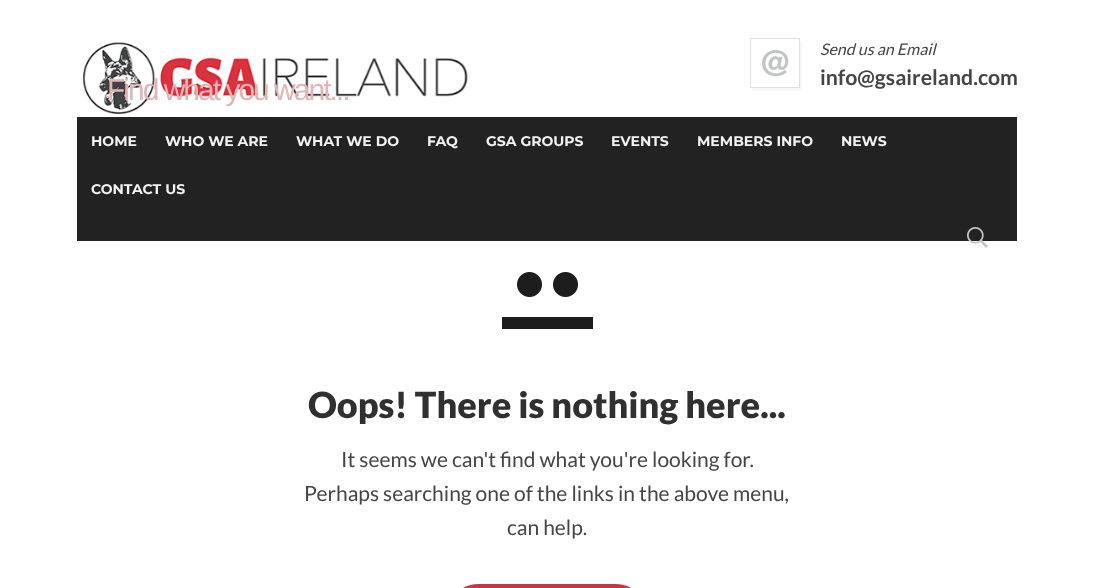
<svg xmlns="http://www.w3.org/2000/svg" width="1094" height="588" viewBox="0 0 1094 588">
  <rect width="100%" height="100%" fill="#ffffff"/>
  <image x="83" y="42" width="385" height="72" href="img1.png"/>
  <path d="M752 88V91H802V41H800V88Z" fill="#f7f7f7"/>
  <rect x="750.5" y="38.5" width="49" height="49" fill="none" stroke="#e0e0e0"/>
  <image x="762" y="50" width="27" height="27" href="img2.png"/>
  <text x="820" y="55" font-family="Lato" font-size="16" font-style="italic" fill="#454545">Send us an Email</text>
  <text x="820" y="85" font-family="Lato" font-size="21.25" font-weight="bold" fill="#454545">info@gsaireland.com</text>
  <text x="107" y="100" font-family="Liberation Sans" font-size="30" letter-spacing="-2" fill="#dfb5b7">Find what you want...</text>
  <rect x="77" y="117" width="940" height="124" fill="#222222"/>
  <text x="91" y="146" font-family="Montserrat" font-size="14" font-weight="100" fill="#f1f1f1">HOME</text>
  <text x="165" y="146" font-family="Montserrat" font-size="14" font-weight="100" fill="#f1f1f1">WHO WE ARE</text>
  <text x="296" y="146" font-family="Montserrat" font-size="14" font-weight="100" fill="#f1f1f1">WHAT WE DO</text>
  <text x="427" y="146" font-family="Montserrat" font-size="14" font-weight="100" fill="#f1f1f1">FAQ</text>
  <text x="486" y="146" font-family="Montserrat" font-size="14" font-weight="100" fill="#f1f1f1">GSA GROUPS</text>
  <text x="611" y="146" font-family="Montserrat" font-size="14" font-weight="100" fill="#f1f1f1">EVENTS</text>
  <text x="697" y="146" font-family="Montserrat" font-size="14" font-weight="100" fill="#f1f1f1">MEMBERS INFO</text>
  <text x="841" y="146" font-family="Montserrat" font-size="14" font-weight="100" fill="#f1f1f1">NEWS</text>
  <text x="91" y="194" font-family="Montserrat" font-size="14" font-weight="100" fill="#f1f1f1">CONTACT US</text>
  <image x="967" y="227" width="21" height="21" href="img3.png"/>
  <image x="502" y="272" width="91" height="57" href="img4.png"/>
  <text x="308" y="418" font-family="Lato" font-size="36" font-weight="900" fill="#303030">Oops! There is nothing here...</text>
  <text x="341" y="467" font-family="Lato" font-size="21" fill="#454545">It seems we can't find what you're looking for.</text>
  <text x="304" y="501" font-family="Lato" font-size="21" fill="#454545">Perhaps searching one of the links in the above menu,</text>
  <text x="507" y="535" font-family="Lato" font-size="21" fill="#454545">can help.</text>
  <rect x="457" y="584" width="180" height="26" rx="21.5" fill="#c53741"/>
</svg>
